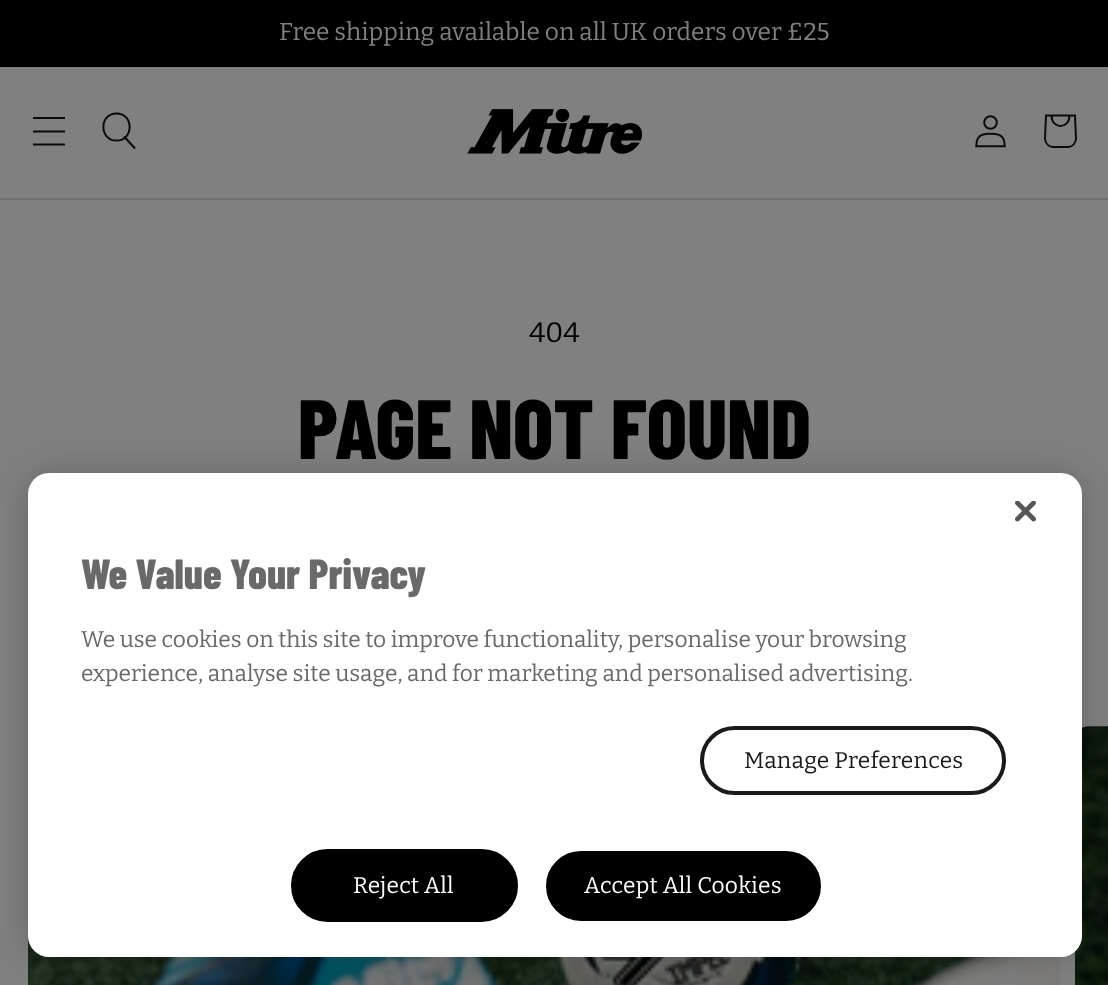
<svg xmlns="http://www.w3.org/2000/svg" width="1108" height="985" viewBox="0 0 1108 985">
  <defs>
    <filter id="blur1" x="-50%" y="-200%" width="200%" height="500%"><feGaussianBlur stdDeviation="16"/></filter>
  </defs>
  <rect width="100%" height="100%" fill="#808080"/>
  <rect x="0" y="0" width="1108" height="67" fill="#000000"/>
  <text x="279" y="40" font-family="Bitter" font-size="24.5" fill="#808080">Free shipping available on all UK orders over £25</text>
  <rect x="0" y="198" width="1108" height="2" fill="#707070"/>
  <rect x="33" y="117" width="32" height="2" fill="#080a0c"/>
  <path d="M33 131.5H65M33 144.5H65" fill="none" stroke="#080a0c" stroke-width="2"/>
  <path d="M124 136.5L135 148.5M116.5 140.5C134 140.5 134 113.5 116.5 113.5C99 113.5 99 140.5 116.5 140.5Z" fill="none" stroke="#080a0c" stroke-width="2"/>
  <image x="467" y="109" width="175" height="45" href="img1.png"/>
  <image x="975" y="115" width="31" height="33" href="img2.png"/>
  <path d="M1069.5 115.5C1069.5 129.5 1051.5 129.5 1051.5 115.5M1046 115.5L1045 139C1045.5 143 1048.5 146.5 1052.5 147H1068.5C1072.5 146.5 1075.5 143 1076 139L1075 115.5Z" fill="none" stroke="#080a0c" stroke-width="2"/>
  <text x="529" y="342" font-family="Bitter" font-size="28" fill="#000000">404</text>
  <text x="298" y="459" font-family="Barlow Condensed" font-size="84" font-weight="800" fill="#000000">PAGE NOT FOUND</text>
  <image x="28" y="936" width="1033" height="49" href="img3.png"/>
  <image x="1075" y="726" width="33" height="259" href="img4.png"/>
  <rect x="28" y="473" width="1054" height="484" rx="21" fill="#000000" fill-opacity="0.2" filter="url(#blur1)"/>
  <rect x="28" y="473" width="1054" height="484" rx="21" fill="#ffffff"/>
  <image x="1015" y="501" width="21" height="21" href="img5.png"/>
  <text x="81" y="589" font-family="Barlow Condensed" font-size="42" font-weight="800" fill="#696969">We Value Your Privacy</text>
  <text x="81" y="647" font-family="Bitter" font-size="22.75" fill="#696969">We use cookies on this site to improve functionality, personalise your browsing</text>
  <text x="81" y="681" font-family="Bitter" font-size="22.75" fill="#696969">experience, analyse site usage, and for marketing and personalised advertising.</text>
  <rect x="702" y="728" width="302" height="65" rx="32.5" fill="none" stroke="#1a1a1a" stroke-width="4"/>
  <text x="744" y="768" font-family="Bitter" font-size="22.75" letter-spacing="0.25" fill="#1a1a1a">Manage Preferences</text>
  <rect x="292" y="850" width="225" height="71" rx="35.5" fill="#000000" stroke="#000000" stroke-width="2"/>
  <text x="353" y="893" font-family="Bitter" font-size="22.75" letter-spacing="0.25" fill="#ffffff">Reject All</text>
  <rect x="548" y="853" width="271" height="66" rx="33" fill="#000000" stroke="#000000" stroke-width="4"/>
  <text x="584" y="893" font-family="Bitter" font-size="22.75" letter-spacing="0.25" fill="#ffffff">Accept All Cookies</text>
</svg>
